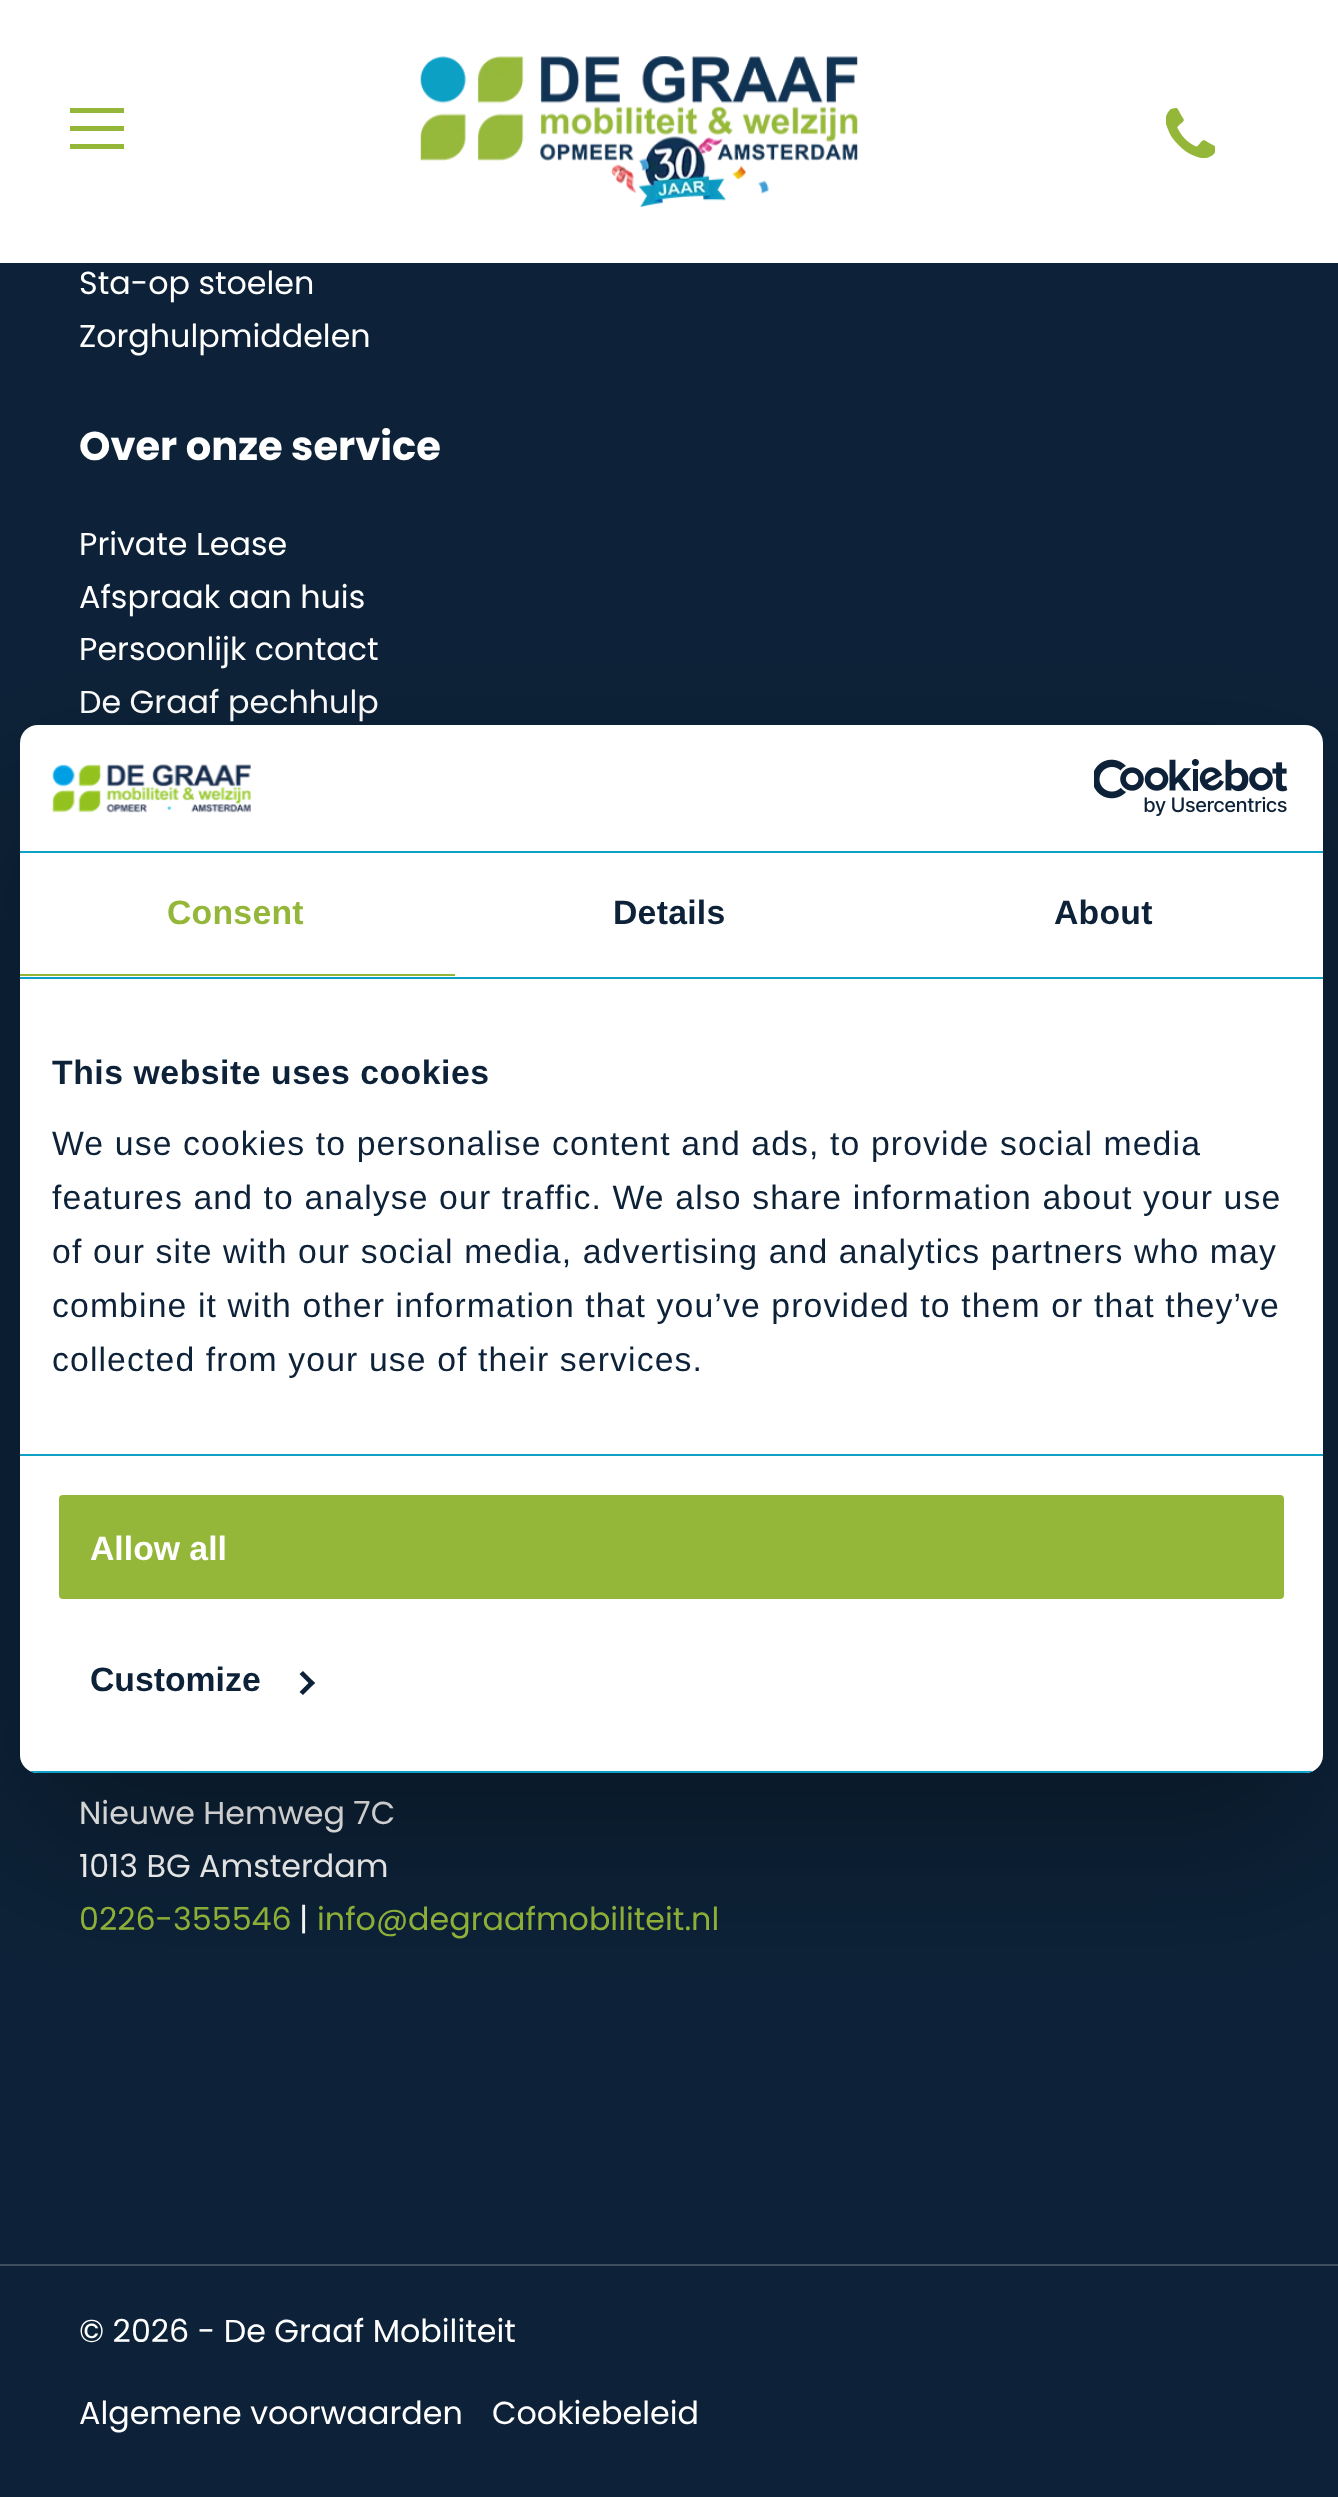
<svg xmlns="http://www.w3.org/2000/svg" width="1338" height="2497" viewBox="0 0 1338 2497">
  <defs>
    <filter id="blur1" x="-50%" y="-200%" width="200%" height="500%"><feGaussianBlur stdDeviation="76.5"/></filter>
    <clipPath id="clip1"><rect x="20" y="725" width="1303" height="1048" rx="18"/></clipPath>
  </defs>
  <rect width="100%" height="100%" fill="#0d2238"/>
  <rect x="0" y="0" width="1338" height="263" fill="#ffffff"/>
  <rect x="70" y="108" width="54" height="5" fill="#94b73a"/>
  <rect x="70" y="126" width="54" height="5" fill="#94b73a"/>
  <rect x="70" y="144" width="54" height="5" fill="#94b73a"/>
  <image x="420" y="56" width="438" height="151" href="img1.png"/>
  <image x="1166" y="108" width="49" height="50" href="img2.png"/>
  <text x="79" y="294" font-family="Poppins" font-size="31.75" fill="#ffffff">Sta-op stoelen</text>
  <text x="79" y="347" font-family="Poppins" font-size="31.75" fill="#ffffff">Zorghulpmiddelen</text>
  <text x="79" y="460" font-family="Poppins" font-size="40" font-weight="bold" fill="#ffffff">Over onze service</text>
  <text x="79" y="555" font-family="Poppins" font-size="31.75" fill="#ffffff">Private Lease</text>
  <text x="79" y="608" font-family="Poppins" font-size="31.75" fill="#ffffff">Afspraak aan huis</text>
  <text x="79" y="660" font-family="Poppins" font-size="31.75" fill="#ffffff">Persoonlijk contact</text>
  <text x="79" y="713" font-family="Poppins" font-size="31.75" fill="#ffffff">De Graaf pechhulp</text>
  <text x="79" y="1824" font-family="Poppins" font-size="31.75" fill="#ffffff">Nieuwe Hemweg 7C</text>
  <text x="79" y="1877" font-family="Poppins" font-size="31.75" fill="#ffffff">1013 BG Amsterdam</text>
  <text x="79" y="1930" font-family="Poppins" font-size="31.75" fill="#94b73a">0226-355546</text>
  <text x="299" y="1930" font-family="Poppins" font-size="31.75" fill="#ffffff">|</text>
  <text x="317" y="1930" font-family="Poppins" font-size="31.75" fill="#94b73a">info@degraafmobiliteit.nl</text>
  <rect x="0" y="2264" width="1338" height="2" fill="#3d4e60"/>
  <text x="79" y="2342" font-family="Poppins" font-size="31.75" fill="#ffffff">© 2026 - De Graaf Mobiliteit</text>
  <text x="79" y="2424" font-family="Poppins" font-size="31.75" fill="#ffffff">Algemene voorwaarden</text>
  <text x="492" y="2424" font-family="Poppins" font-size="31.75" fill="#ffffff">Cookiebeleid</text>
  <rect x="20" y="797" width="1303" height="1048" rx="18" fill="#000000" fill-opacity="0.3" filter="url(#blur1)"/>
  <rect x="20" y="725" width="1303" height="1048" rx="18" fill="#ffffff"/>
  <rect x="20" y="851" width="1303" height="2" fill="#0ea0c5"/>
  <image x="52" y="764" width="199" height="49" href="img3.png"/>
  <image x="1094" y="758" width="194" height="58" href="img4.png"/>
  <rect x="20" y="977" width="1303" height="2" fill="#0ea0c5"/>
  <rect x="20" y="974" width="435" height="2" fill="#94b73a"/>
  <text x="167" y="924" font-family="Liberation Sans" font-size="33.75" font-weight="bold" letter-spacing="0.25" fill="#94b73a">Consent</text>
  <text x="613" y="924" font-family="Liberation Sans" font-size="33.75" font-weight="bold" letter-spacing="0.25" fill="#0d2238">Details</text>
  <text x="1054" y="924" font-family="Liberation Sans" font-size="33.75" font-weight="bold" letter-spacing="0.25" fill="#0d2238">About</text>
  <rect x="20" y="1454" width="1303" height="2" fill="#0ea0c5"/>
  <text x="52" y="1084" font-family="Liberation Sans" font-size="33.75" font-weight="bold" letter-spacing="0.55" fill="#0d2238">This website uses cookies</text>
  <text x="52" y="1155" font-family="Liberation Sans" font-size="33.75" letter-spacing="1.12" fill="#0d2238">We use cookies to personalise content and ads, to provide social media</text>
  <text x="52" y="1209" font-family="Liberation Sans" font-size="33.75" letter-spacing="1.12" fill="#0d2238">features and to analyse our traffic. We also share information about your use</text>
  <text x="52" y="1263" font-family="Liberation Sans" font-size="33.75" letter-spacing="1.12" fill="#0d2238">of our site with our social media, advertising and analytics partners who may</text>
  <text x="52" y="1317" font-family="Liberation Sans" font-size="33.75" letter-spacing="1.12" fill="#0d2238">combine it with other information that you’ve provided to them or that they’ve</text>
  <text x="52" y="1371" font-family="Liberation Sans" font-size="33.75" letter-spacing="1.12" fill="#0d2238">collected from your use of their services.</text>
  <g clip-path="url(#clip1)">
    <rect x="30" y="1771" width="1283" height="2" fill="#0ea0c5"/>
  </g>
  <rect x="56.5" y="1492.5" width="1230" height="109" rx="6.5" fill="#94b73a" stroke="#ffffff" stroke-width="5"/>
  <text x="90" y="1560" font-family="Liberation Sans" font-size="33.75" font-weight="bold" fill="#ffffff">Allow all</text>
  <text x="90" y="1691" font-family="Liberation Sans" font-size="33.75" font-weight="bold" fill="#0d2238">Customize</text>
  <path d="M303 1671L315 1683L311.5 1686L299.5 1674Z" fill="#0d2238"/>
  <path d="M311.5 1680L315 1683L303 1695L299.5 1692Z" fill="#0d2238"/>
</svg>
